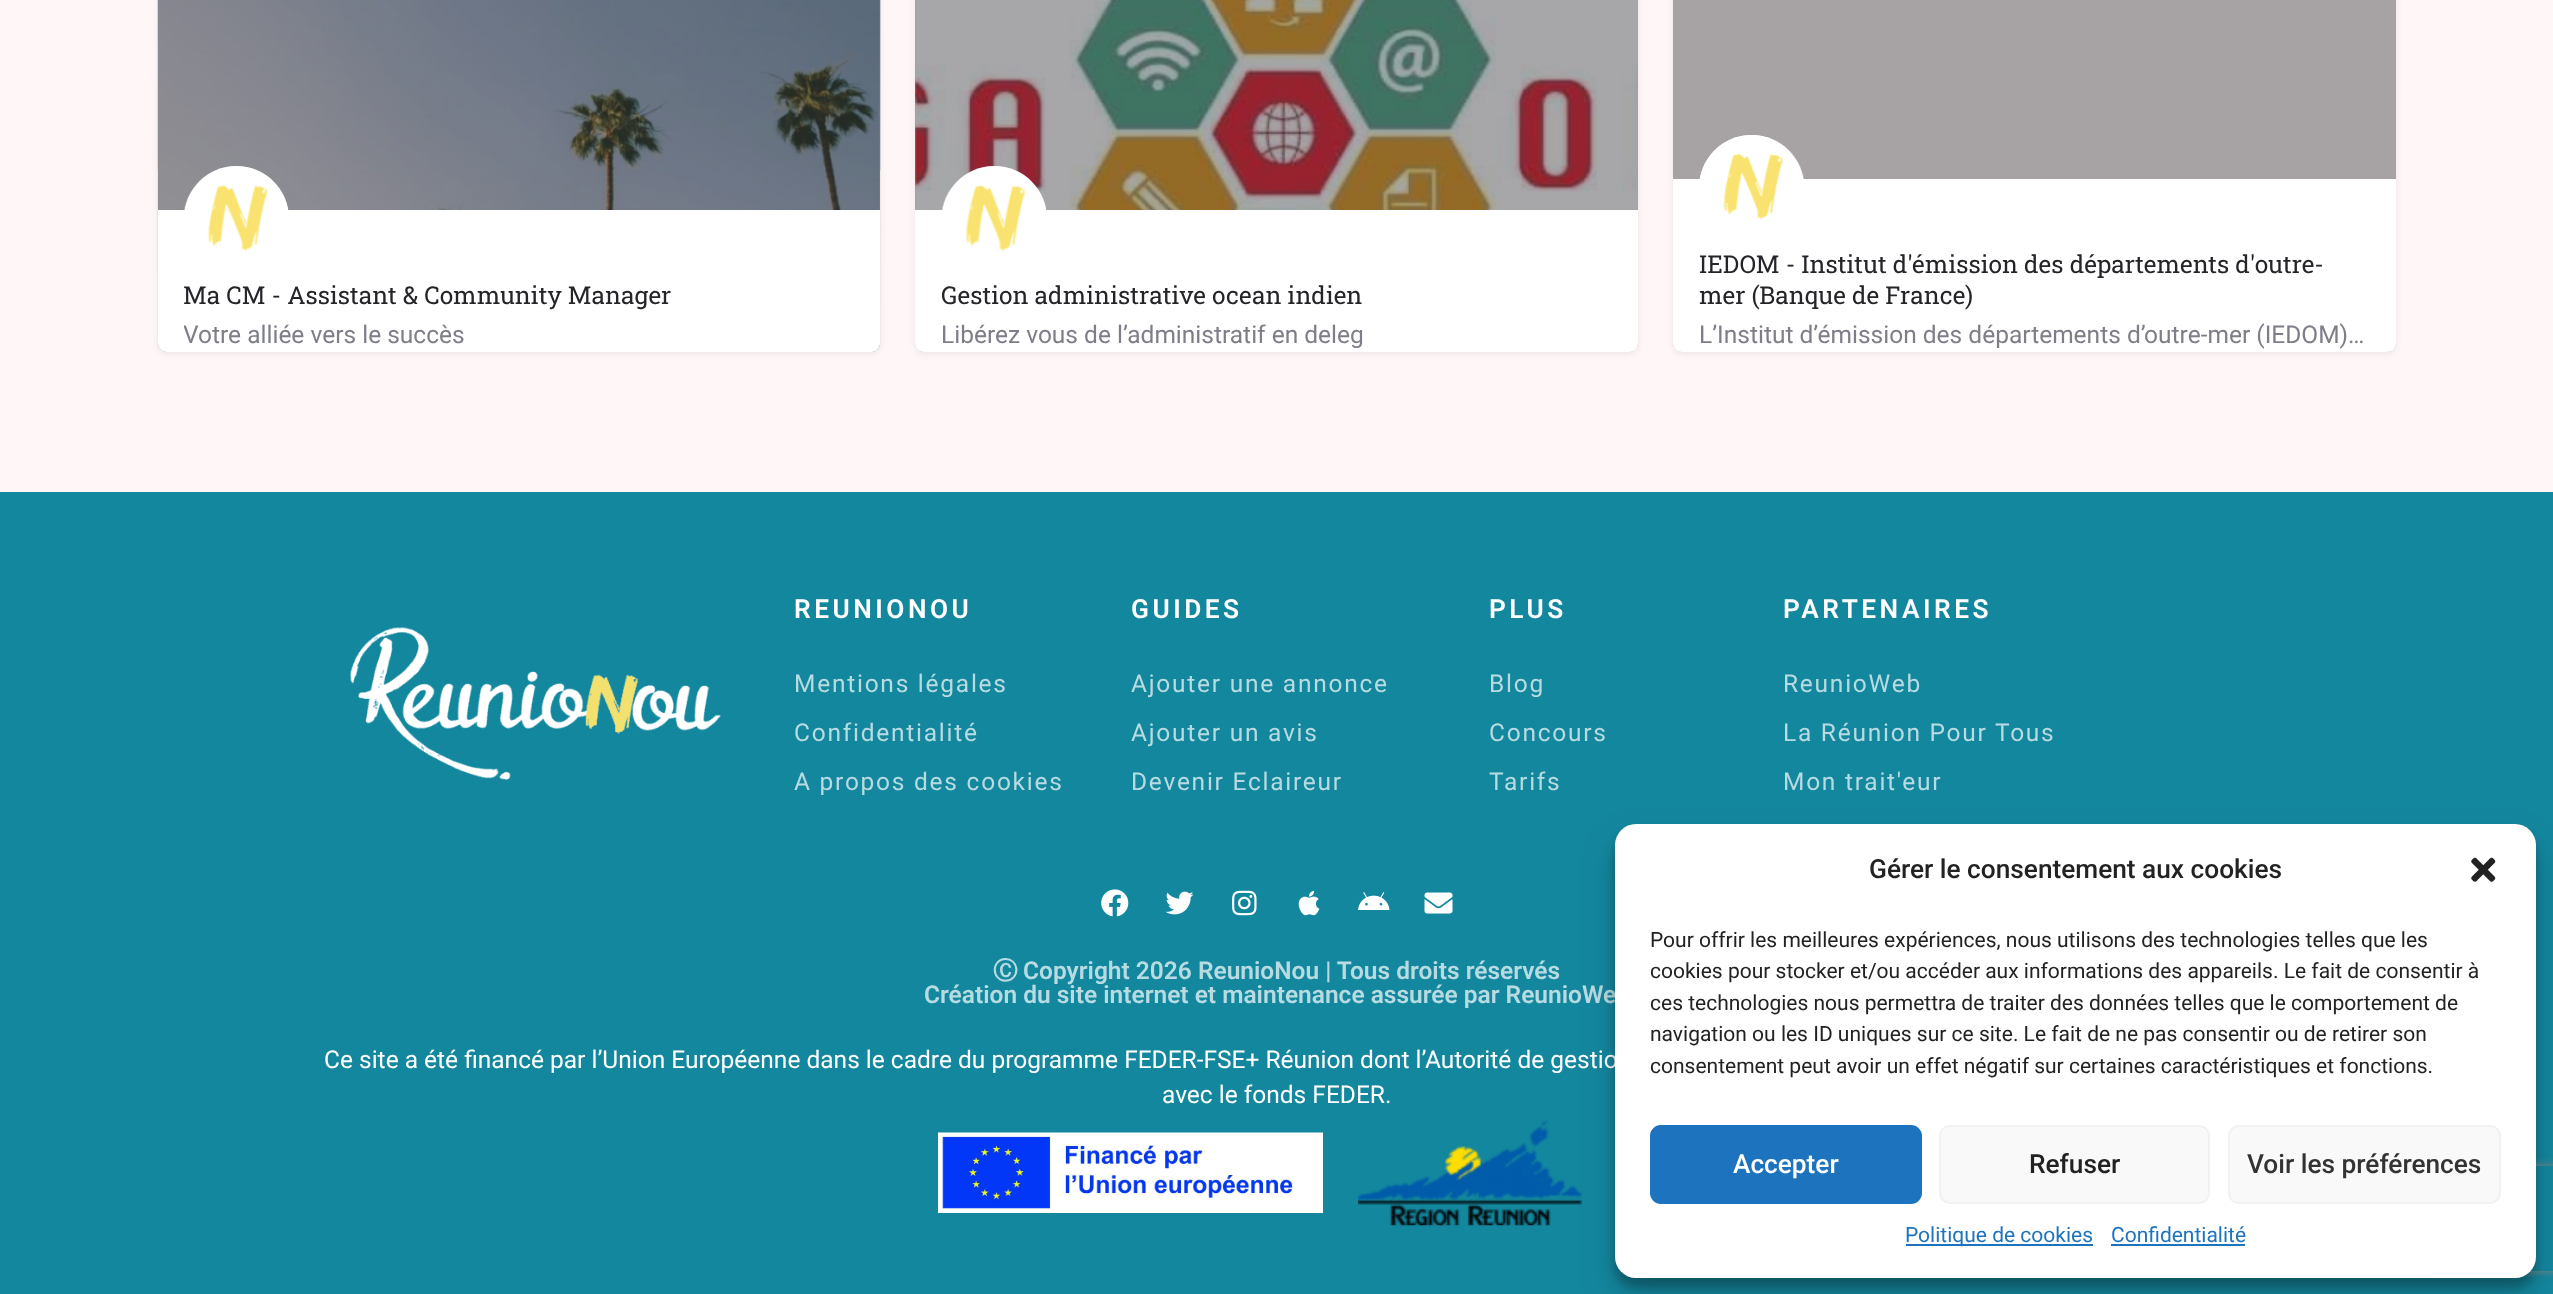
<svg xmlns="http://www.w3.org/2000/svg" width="2553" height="1294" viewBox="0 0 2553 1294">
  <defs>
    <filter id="blur1" x="-50%" y="-200%" width="200%" height="500%"><feGaussianBlur stdDeviation="3.5"/></filter>
    <clipPath id="clip1"><rect x="184" y="317" width="670" height="35"/></clipPath>
    <clipPath id="clip2"><path d="M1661 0H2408V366H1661ZM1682-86H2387C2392-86 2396-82 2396-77V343C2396 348 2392 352 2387 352H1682C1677 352 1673 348 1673 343V-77C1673-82 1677-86 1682-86Z" clip-rule="evenodd"/></clipPath>
    <filter id="blur2" x="-50%" y="-200%" width="200%" height="500%"><feGaussianBlur stdDeviation="5"/></filter>
    <filter id="blur3" x="-50%" y="-200%" width="200%" height="500%"><feGaussianBlur stdDeviation="17.5"/></filter>
    <clipPath id="clip3"><path d="M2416 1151H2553V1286H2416ZM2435 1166H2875C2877 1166 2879 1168 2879 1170V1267C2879 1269 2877 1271 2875 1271H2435C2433 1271 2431 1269 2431 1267V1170C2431 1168 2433 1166 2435 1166Z" clip-rule="evenodd"/></clipPath>
    <filter id="blur4" x="-50%" y="-200%" width="200%" height="500%"><feGaussianBlur stdDeviation="4.5"/></filter>
  </defs>
  <rect width="100%" height="100%" fill="#13879e"/>
  <rect x="0" y="0" width="2553" height="492" fill="#fff7f7"/>
  <rect x="158" y="-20" width="722" height="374" rx="9" fill="#000000" fill-opacity="0.07" filter="url(#blur1)"/>
  <image x="157" y="0" width="724" height="352" href="img1.png"/>
  <rect x="158" y="-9" width="722" height="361" rx="9" fill="#242429" fill-opacity="0.4"/>
  <path d="M158 210H880V343C880 348 876 352 871 352H167C162 352 158 348 158 343Z" fill="#ffffff"/>
  <circle cx="236.5" cy="218.5" r="52.5" fill="#ffffff"/>
  <image x="184" y="166" width="105" height="86" href="img2.png"/>
  <text x="183" y="304" font-family="Roboto Slab" font-size="24.5" fill="#242429">Ma CM - Assistant &amp; Community Manager</text>
  <g clip-path="url(#clip1)">
    <text x="183" y="343" font-family="Roboto" font-size="24.5" fill="#7e7e89">Votre alliée vers le succès</text>
  </g>
  <rect x="915" y="-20" width="723" height="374" rx="9" fill="#000000" fill-opacity="0.07" filter="url(#blur1)"/>
  <image x="915" y="0" width="723" height="352" href="img3.png"/>
  <rect x="915" y="-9" width="723" height="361" rx="9" fill="#242429" fill-opacity="0.4"/>
  <path d="M915 210H1638V343C1638 348 1634 352 1629 352H924C919 352 915 348 915 343Z" fill="#ffffff"/>
  <circle cx="994.5" cy="218.5" r="52.5" fill="#ffffff"/>
  <image x="942" y="166" width="104" height="85" href="img4.png"/>
  <text x="941" y="304" font-family="Roboto Slab" font-size="24.5" fill="#242429">Gestion administrative ocean indien</text>
  <text x="941" y="343" font-family="Roboto" font-size="24.5" fill="#7e7e89">Libérez vous de l’administratif en deleg</text>
  <g clip-path="url(#clip2)">
    <rect x="1673" y="-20" width="723" height="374" rx="9" fill="#000000" fill-opacity="0.07" filter="url(#blur1)"/>
  </g>
  <rect x="1673" y="-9" width="723" height="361" rx="9" fill="#242429" fill-opacity="0.4"/>
  <path d="M1673 179H2396V343C2396 348 2392 352 2387 352H1682C1677 352 1673 348 1673 343Z" fill="#ffffff"/>
  <circle cx="1751.5" cy="187.5" r="52.5" fill="#ffffff"/>
  <image x="1699" y="135" width="105" height="85" href="img5.png"/>
  <text x="1699" y="273" font-family="Roboto Slab" font-size="24.5" fill="#242429">IEDOM - Institut d'émission des départements d'outre-</text>
  <text x="1699" y="304" font-family="Roboto Slab" font-size="24.5" fill="#242429">mer (Banque de France)</text>
  <text x="1699" y="343" font-family="Roboto" font-size="24.5" fill="#7e7e89">L’Institut d’émission des départements d’outre-mer (IEDOM)…</text>
  <image x="350" y="627" width="371" height="153" href="img6.png"/>
  <text x="794" y="618" font-family="Roboto" font-size="26.25" font-weight="600" letter-spacing="3.5" fill="#ffffff">REUNIONOU</text>
  <text x="794" y="692" font-family="Roboto" font-size="24.5" letter-spacing="1.75" fill="#b8dbe2">Mentions légales</text>
  <text x="794" y="741" font-family="Roboto" font-size="24.5" letter-spacing="1.75" fill="#b8dbe2">Confidentialité</text>
  <text x="794" y="790" font-family="Roboto" font-size="24.5" letter-spacing="1.75" fill="#b8dbe2">A propos des cookies</text>
  <text x="1131" y="618" font-family="Roboto" font-size="26.25" font-weight="600" letter-spacing="3.5" fill="#ffffff">GUIDES</text>
  <text x="1131" y="692" font-family="Roboto" font-size="24.5" letter-spacing="1.75" fill="#b8dbe2">Ajouter une annonce</text>
  <text x="1131" y="741" font-family="Roboto" font-size="24.5" letter-spacing="1.75" fill="#b8dbe2">Ajouter un avis</text>
  <text x="1131" y="790" font-family="Roboto" font-size="24.5" letter-spacing="1.75" fill="#b8dbe2">Devenir Eclaireur</text>
  <text x="1489" y="618" font-family="Roboto" font-size="26.25" font-weight="600" letter-spacing="3.5" fill="#ffffff">PLUS</text>
  <text x="1489" y="692" font-family="Roboto" font-size="24.5" letter-spacing="1.75" fill="#b8dbe2">Blog</text>
  <text x="1489" y="741" font-family="Roboto" font-size="24.5" letter-spacing="1.75" fill="#b8dbe2">Concours</text>
  <text x="1489" y="790" font-family="Roboto" font-size="24.5" letter-spacing="1.75" fill="#b8dbe2">Tarifs</text>
  <text x="1783" y="618" font-family="Roboto" font-size="26.25" font-weight="600" letter-spacing="3.5" fill="#ffffff">PARTENAIRES</text>
  <text x="1783" y="692" font-family="Roboto" font-size="24.5" letter-spacing="1.75" fill="#b8dbe2">ReunioWeb</text>
  <text x="1783" y="741" font-family="Roboto" font-size="24.5" letter-spacing="1.75" fill="#b8dbe2">La Réunion Pour Tous</text>
  <text x="1783" y="790" font-family="Roboto" font-size="24.5" letter-spacing="1.75" fill="#b8dbe2">Mon trait'eur</text>
  <image x="1101" y="889" width="28" height="28" href="img7.png"/>
  <image x="1165" y="891" width="29" height="24" href="img8.png"/>
  <image x="1232" y="890" width="25" height="26" href="img9.png"/>
  <image x="1298" y="890" width="22" height="26" href="img10.png"/>
  <image x="1358" y="892" width="32" height="18" href="img11.png"/>
  <image x="1424" y="892" width="29" height="22" href="img12.png"/>
  <text x="993" y="979" font-family="WenQuanYi Zen Hei" font-size="24.5" font-weight="bold" fill="#b8dbe2">Ⓒ</text>
  <text x="1023" y="979" font-family="Roboto" font-size="24.5" font-weight="600" fill="#b8dbe2">Copyright 2026 ReunioNou | Tous droits réservés</text>
  <text x="924" y="1003" font-family="Roboto" font-size="24.5" font-weight="600" fill="#b8dbe2">Création du site internet et maintenance assurée par ReunioWe</text>
  <text x="324" y="1068" font-family="Roboto" font-size="24.5" fill="#ffffff">Ce site a été financé par l’Union Européenne dans le cadre du programme FEDER-FSE+ Réunion dont l’Autorité de gestio</text>
  <text x="1162" y="1103" font-family="Roboto" font-size="24.5" fill="#ffffff">avec le fonds FEDER.</text>
  <image x="938" y="1132" width="385" height="81" href="img13.png"/>
  <image x="1358" y="1120" width="224" height="106" href="img14.png"/>
  <rect x="1615" y="835" width="921" height="453" rx="21" fill="#000000" fill-opacity="0.23" filter="url(#blur2)"/>
  <rect x="1615" y="842" width="921" height="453" rx="21" fill="#000000" fill-opacity="0.19" filter="url(#blur3)"/>
  <g clip-path="url(#clip3)">
    <rect x="2431" y="1166" width="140" height="105" rx="4" fill="#808080" filter="url(#blur4)"/>
  </g>
  <rect x="1615" y="824" width="921" height="454" rx="21" fill="#ffffff"/>
  <text x="1869" y="878" font-family="Roboto" font-size="26.25" font-weight="500" fill="#222222">Gérer le consentement aux cookies</text>
  <image x="2471" y="857" width="25" height="25" href="img15.png"/>
  <text x="1650" y="947" font-family="Roboto" font-size="21" fill="#222222">Pour offrir les meilleures expériences, nous utilisons des technologies telles que les</text>
  <text x="1650" y="978" font-family="Roboto" font-size="21" fill="#222222">cookies pour stocker et/ou accéder aux informations des appareils. Le fait de consentir à</text>
  <text x="1650" y="1010" font-family="Roboto" font-size="21" fill="#222222">ces technologies nous permettra de traiter des données telles que le comportement de</text>
  <text x="1650" y="1041" font-family="Roboto" font-size="21" fill="#222222">navigation ou les ID uniques sur ce site. Le fait de ne pas consentir ou de retirer son</text>
  <text x="1650" y="1073" font-family="Roboto" font-size="21" fill="#222222">consentement peut avoir un effet négatif sur certaines caractéristiques et fonctions.</text>
  <rect x="1651" y="1126" width="270" height="77" rx="10" fill="#1e73be" stroke="#1e73be" stroke-width="2"/>
  <text x="1733" y="1173" font-family="Roboto" font-size="26.25" font-weight="500" fill="#ffffff">Accepter</text>
  <rect x="1940" y="1126" width="269" height="77" rx="10" fill="#f9f9f9" stroke="#f2f2f2" stroke-width="2"/>
  <text x="2029" y="1173" font-family="Roboto" font-size="26.25" font-weight="500" fill="#222222">Refuser</text>
  <rect x="2229" y="1126" width="271" height="77" rx="10" fill="#f9f9f9" stroke="#f2f2f2" stroke-width="2"/>
  <text x="2247" y="1173" font-family="Roboto" font-size="26.25" font-weight="500" fill="#333333">Voir les préférences</text>
  <rect x="1906" y="1244" width="187" height="2" fill="#1e73be"/>
  <text x="1905" y="1242" font-family="Roboto" font-size="21" fill="#1e73be">Politique de cookies</text>
  <text x="2111" y="1242" font-family="Roboto" font-size="21" fill="#1e73be">Confidentialité</text>
  <rect x="2111" y="1244" width="134" height="2" fill="#1e73be"/>
</svg>
